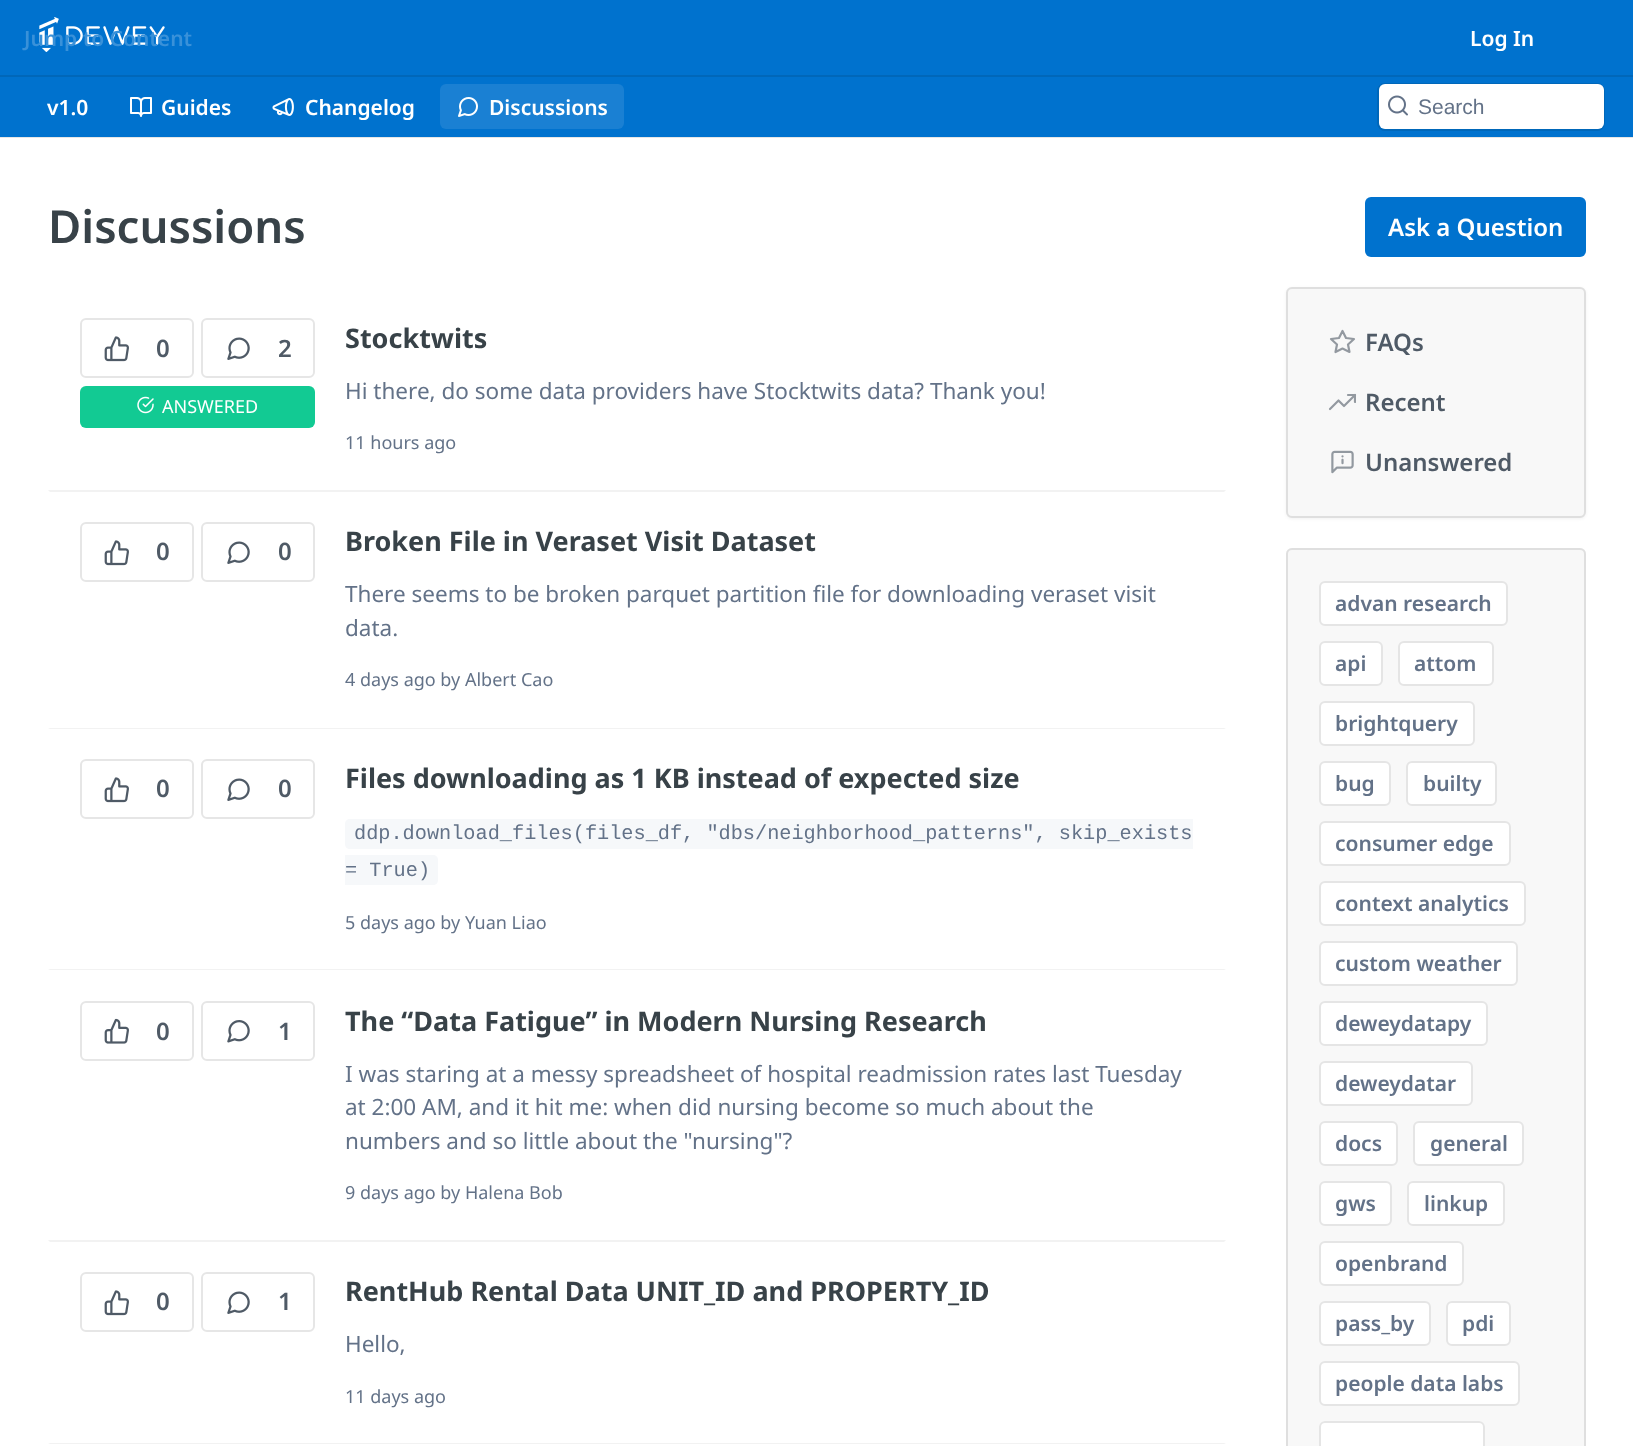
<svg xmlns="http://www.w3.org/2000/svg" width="1633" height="1446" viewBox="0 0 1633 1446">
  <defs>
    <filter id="blur1" x="-50%" y="-200%" width="200%" height="500%"><feGaussianBlur stdDeviation="1.5"/></filter>
    <clipPath id="clip1"><rect x="1329" y="389" width="27" height="27"/></clipPath>
  </defs>
  <rect width="100%" height="100%" fill="#ffffff"/>
  <path d="M0 136V138H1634V2V136Z" fill="#e6e6e6"/>
  <rect x="0" y="0" width="1633" height="137" fill="#0072ce"/>
  <rect x="0" y="75" width="1633" height="2" fill="#0067b9"/>
  <image x="39" y="17" width="126" height="35" href="img1.png"/>
  <text x="24" y="46" font-family="Noto Sans" font-size="21" font-weight="600" fill="#3991d9">Jump to Content</text>
  <text x="1470" y="46" font-family="Noto Sans" font-size="21" font-weight="600" fill="#ffffff">Log In</text>
  <text x="47" y="115" font-family="Noto Sans" font-size="21" font-weight="600" fill="#ffffff">v1.0</text>
  <image x="130" y="97" width="22" height="20" href="img2.png"/>
  <text x="161" y="115" font-family="Noto Sans" font-size="21" font-weight="600" fill="#ffffff">Guides</text>
  <image x="272" y="98" width="22" height="18" href="img3.png"/>
  <text x="305" y="115" font-family="Noto Sans" font-size="21" font-weight="600" fill="#ffffff">Changelog</text>
  <rect x="440" y="84" width="184" height="45" rx="6" fill="#1a80d3"/>
  <image x="458" y="97" width="20" height="20" href="img4.png"/>
  <text x="489" y="115" font-family="Noto Sans" font-size="21" font-weight="600" fill="#ffffff">Discussions</text>
  <rect x="1378" y="84" width="226" height="46" rx="7" fill="none" stroke="#0067b9" stroke-width="2"/>
  <rect x="1379" y="84" width="225" height="45" rx="6" fill="#ffffff"/>
  <image x="1388" y="95" width="20" height="21" href="img5.png"/>
  <text x="1418" y="114" font-family="Liberation Sans" font-size="21" fill="#637288">Search</text>
  <text x="48" y="243" font-family="Noto Sans" font-size="45.5" font-weight="600" fill="#384248">Discussions</text>
  <rect x="1365" y="197" width="221" height="60" rx="6" fill="#0072ce"/>
  <text x="1388" y="236" font-family="Noto Sans" font-size="24" font-weight="600" fill="#ffffff">Ask a Question</text>
  <rect x="81" y="319" width="112" height="58" rx="5" fill="none" stroke="#e6e6e6" stroke-width="2"/>
  <image x="104" y="336" width="25" height="26" href="img6.png"/>
  <text x="156" y="357" font-family="Noto Sans" font-size="24" font-weight="600" fill="#4f5a66">0</text>
  <rect x="202" y="319" width="112" height="58" rx="5" fill="none" stroke="#e6e6e6" stroke-width="2"/>
  <image x="227" y="337" width="23" height="23" href="img7.png"/>
  <text x="278" y="357" font-family="Noto Sans" font-size="24" font-weight="600" fill="#4f5a66">2</text>
  <rect x="80" y="386" width="235" height="42" rx="6" fill="#12ca93"/>
  <image x="137" y="396" width="17" height="18" href="img8.png"/>
  <text x="162" y="413" font-family="Noto Sans" font-size="18" fill="#ffffff">ANSWERED</text>
  <text x="345" y="348" font-family="Noto Sans" font-size="27" font-weight="bold" fill="#384248">Stocktwits</text>
  <text x="345" y="399" font-family="Noto Sans" font-size="22.5" fill="#637288">Hi there, do some data providers have Stocktwits data? Thank you!</text>
  <text x="345" y="449" font-family="Noto Sans" font-size="18" fill="#637288">11 hours ago</text>
  <path d="M48 490H1226L1224 492H50Z" fill="#f2f2f2"/>
  <rect x="81" y="523" width="112" height="58" rx="5" fill="none" stroke="#e6e6e6" stroke-width="2"/>
  <image x="104" y="540" width="25" height="26" href="img6.png"/>
  <text x="156" y="560" font-family="Noto Sans" font-size="24" font-weight="600" fill="#4f5a66">0</text>
  <rect x="202" y="523" width="112" height="58" rx="5" fill="none" stroke="#e6e6e6" stroke-width="2"/>
  <image x="227" y="541" width="23" height="23" href="img7.png"/>
  <text x="278" y="560" font-family="Noto Sans" font-size="24" font-weight="600" fill="#4f5a66">0</text>
  <text x="345" y="551" font-family="Noto Sans" font-size="27" font-weight="bold" fill="#384248">Broken File in Veraset Visit Dataset</text>
  <text x="345" y="602" font-family="Noto Sans" font-size="22.5" fill="#637288">There seems to be broken parquet partition file for downloading veraset visit</text>
  <text x="345" y="636" font-family="Noto Sans" font-size="22.5" fill="#637288">data.</text>
  <text x="345" y="686" font-family="Noto Sans" font-size="18" fill="#637288">4 days ago by Albert Cao</text>
  <path d="M48 728H1226L1224 729H50Z" fill="#f2f2f2"/>
  <rect x="81" y="760" width="112" height="58" rx="5" fill="none" stroke="#e6e6e6" stroke-width="2"/>
  <image x="104" y="777" width="25" height="26" href="img6.png"/>
  <text x="156" y="797" font-family="Noto Sans" font-size="24" font-weight="600" fill="#4f5a66">0</text>
  <rect x="202" y="760" width="112" height="58" rx="5" fill="none" stroke="#e6e6e6" stroke-width="2"/>
  <image x="227" y="778" width="23" height="23" href="img7.png"/>
  <text x="278" y="797" font-family="Noto Sans" font-size="24" font-weight="600" fill="#4f5a66">0</text>
  <text x="345" y="788" font-family="Noto Sans" font-size="27" font-weight="bold" fill="#384248">Files downloading as 1 KB instead of expected size</text>
  <path d="M350 819H1193V849H350C347 849 345 847 345 844V824C345 821 347 819 350 819Z" fill="#f6f8fa"/>
  <text x="354" y="839" font-family="Liberation Mono" font-size="20.25" fill="#637288">ddp.download_files(files_df, "dbs/neighborhood_patterns", skip_exists</text>
  <path d="M345 855H433C436 855 438 857 438 860V880C438 883 436 885 433 885H345Z" fill="#f6f8fa"/>
  <text x="345" y="876" font-family="Liberation Mono" font-size="20.25" fill="#637288">= True)</text>
  <text x="345" y="929" font-family="Noto Sans" font-size="18" fill="#637288">5 days ago by Yuan Liao</text>
  <path d="M48 969H1226L1224 970H50Z" fill="#f2f2f2"/>
  <rect x="81" y="1002" width="112" height="58" rx="5" fill="none" stroke="#e6e6e6" stroke-width="2"/>
  <image x="104" y="1018" width="25" height="26" href="img9.png"/>
  <text x="156" y="1040" font-family="Noto Sans" font-size="24" font-weight="600" fill="#4f5a66">0</text>
  <rect x="202" y="1002" width="112" height="58" rx="5" fill="none" stroke="#e6e6e6" stroke-width="2"/>
  <image x="227" y="1020" width="23" height="23" href="img10.png"/>
  <text x="278" y="1040" font-family="Noto Sans" font-size="24" font-weight="600" fill="#4f5a66">1</text>
  <text x="345" y="1031" font-family="Noto Sans" font-size="27" font-weight="bold" fill="#384248">The “Data Fatigue” in Modern Nursing Research</text>
  <text x="345" y="1082" font-family="Noto Sans" font-size="22.5" fill="#637288">I was staring at a messy spreadsheet of hospital readmission rates last Tuesday</text>
  <text x="345" y="1115" font-family="Noto Sans" font-size="22.5" fill="#637288">at 2:00 AM, and it hit me: when did nursing become so much about the</text>
  <text x="345" y="1149" font-family="Noto Sans" font-size="22.5" fill="#637288">numbers and so little about the "nursing"?</text>
  <text x="345" y="1199" font-family="Noto Sans" font-size="18" fill="#637288">9 days ago by Halena Bob</text>
  <path d="M48 1240H1226L1224 1242H50Z" fill="#f2f2f2"/>
  <rect x="81" y="1273" width="112" height="58" rx="5" fill="none" stroke="#e6e6e6" stroke-width="2"/>
  <image x="104" y="1290" width="25" height="26" href="img6.png"/>
  <text x="156" y="1310" font-family="Noto Sans" font-size="24" font-weight="600" fill="#4f5a66">0</text>
  <rect x="202" y="1273" width="112" height="58" rx="5" fill="none" stroke="#e6e6e6" stroke-width="2"/>
  <image x="227" y="1291" width="23" height="23" href="img7.png"/>
  <text x="278" y="1310" font-family="Noto Sans" font-size="24" font-weight="600" fill="#4f5a66">1</text>
  <text x="345" y="1301" font-family="Noto Sans" font-size="27" font-weight="bold" fill="#384248">RentHub Rental Data UNIT_ID and PROPERTY_ID</text>
  <text x="345" y="1352" font-family="Noto Sans" font-size="22.5" fill="#637288">Hello,</text>
  <text x="345" y="1403" font-family="Noto Sans" font-size="18" fill="#637288">11 days ago</text>
  <path d="M48 1443H1226L1224 1444H50Z" fill="#f2f2f2"/>
  <rect x="1286" y="288" width="300" height="231" rx="6" fill="#000000" fill-opacity="0.05" filter="url(#blur1)"/>
  <rect x="1287" y="288" width="298" height="229" rx="5" fill="#f8f8f8" stroke="#dfdfdf" stroke-width="2"/>
  <path d="M1342.5 331L1346 338L1354 339L1348 344.5L1349.5 352L1342.5 348.5L1335.5 352L1337 344.5L1331 339L1339 338Z" fill="none" stroke="#9399a0" stroke-width="2.2" stroke-linecap="round" stroke-linejoin="round"/>
  <text x="1365" y="351" font-family="Noto Sans" font-size="24" font-weight="600" fill="#4f5a66">FAQs</text>
  <path d="M1355 395L1344 406L1338.5 400.5L1330 409" fill="none" stroke="#9399a0" stroke-width="2.2" stroke-linecap="round" stroke-linejoin="round"/>
  <g clip-path="url(#clip1)">
    <path d="M1348 395H1355V402" fill="none" stroke="#9399a0" stroke-width="2.2" stroke-linecap="round" stroke-linejoin="round"/>
  </g>
  <text x="1365" y="411" font-family="Noto Sans" font-size="24" font-weight="600" fill="#4f5a66">Recent</text>
  <image x="1331" y="450" width="23" height="24" href="img11.png"/>
  <text x="1365" y="471" font-family="Noto Sans" font-size="24" font-weight="600" fill="#4f5a66">Unanswered</text>
  <path d="M1292 548H1580C1583.5 548 1586 550.5 1586 554V1446H1286V554C1286 550.5 1288.5 548 1292 548Z" fill="#f8f8f8"/>
  <rect x="1287" y="549" width="298" height="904" rx="5" fill="none" stroke="#dfdfdf" stroke-width="2"/>
  <rect x="1320" y="582" width="187" height="43" rx="5" fill="#ffffff" stroke="#e5e5e5" stroke-width="2"/>
  <text x="1335" y="611" font-family="Noto Sans" font-size="21" font-weight="600" fill="#637288">advan research</text>
  <rect x="1320" y="642" width="62" height="43" rx="5" fill="#ffffff" stroke="#e5e5e5" stroke-width="2"/>
  <text x="1335" y="671" font-family="Noto Sans" font-size="21" font-weight="600" fill="#637288">api</text>
  <rect x="1399" y="642" width="94" height="43" rx="5" fill="#ffffff" stroke="#e5e5e5" stroke-width="2"/>
  <text x="1414" y="671" font-family="Noto Sans" font-size="21" font-weight="600" fill="#637288">attom</text>
  <rect x="1320" y="702" width="154" height="43" rx="5" fill="#ffffff" stroke="#e5e5e5" stroke-width="2"/>
  <text x="1335" y="731" font-family="Noto Sans" font-size="21" font-weight="600" fill="#637288">brightquery</text>
  <rect x="1320" y="762" width="70" height="43" rx="5" fill="#ffffff" stroke="#e5e5e5" stroke-width="2"/>
  <text x="1335" y="791" font-family="Noto Sans" font-size="21" font-weight="600" fill="#637288">bug</text>
  <rect x="1407" y="762" width="89" height="43" rx="5" fill="#ffffff" stroke="#e5e5e5" stroke-width="2"/>
  <text x="1423" y="791" font-family="Noto Sans" font-size="21" font-weight="600" fill="#637288">builty</text>
  <rect x="1320" y="822" width="190" height="43" rx="5" fill="#ffffff" stroke="#e5e5e5" stroke-width="2"/>
  <text x="1335" y="851" font-family="Noto Sans" font-size="21" font-weight="600" fill="#637288">consumer edge</text>
  <rect x="1320" y="882" width="205" height="43" rx="5" fill="#ffffff" stroke="#e5e5e5" stroke-width="2"/>
  <text x="1335" y="911" font-family="Noto Sans" font-size="21" font-weight="600" fill="#637288">context analytics</text>
  <rect x="1320" y="942" width="197" height="43" rx="5" fill="#ffffff" stroke="#e5e5e5" stroke-width="2"/>
  <text x="1335" y="971" font-family="Noto Sans" font-size="21" font-weight="600" fill="#637288">custom weather</text>
  <rect x="1320" y="1002" width="167" height="43" rx="5" fill="#ffffff" stroke="#e5e5e5" stroke-width="2"/>
  <text x="1335" y="1031" font-family="Noto Sans" font-size="21" font-weight="600" fill="#637288">deweydatapy</text>
  <rect x="1320" y="1062" width="152" height="43" rx="5" fill="#ffffff" stroke="#e5e5e5" stroke-width="2"/>
  <text x="1335" y="1091" font-family="Noto Sans" font-size="21" font-weight="600" fill="#637288">deweydatar</text>
  <rect x="1320" y="1122" width="77" height="43" rx="5" fill="#ffffff" stroke="#e5e5e5" stroke-width="2"/>
  <text x="1335" y="1151" font-family="Noto Sans" font-size="21" font-weight="600" fill="#637288">docs</text>
  <rect x="1414" y="1122" width="109" height="43" rx="5" fill="#ffffff" stroke="#e5e5e5" stroke-width="2"/>
  <text x="1430" y="1151" font-family="Noto Sans" font-size="21" font-weight="600" fill="#637288">general</text>
  <rect x="1320" y="1182" width="71" height="43" rx="5" fill="#ffffff" stroke="#e5e5e5" stroke-width="2"/>
  <text x="1335" y="1211" font-family="Noto Sans" font-size="21" font-weight="600" fill="#637288">gws</text>
  <rect x="1408" y="1182" width="96" height="43" rx="5" fill="#ffffff" stroke="#e5e5e5" stroke-width="2"/>
  <text x="1424" y="1211" font-family="Noto Sans" font-size="21" font-weight="600" fill="#637288">linkup</text>
  <rect x="1320" y="1242" width="143" height="43" rx="5" fill="#ffffff" stroke="#e5e5e5" stroke-width="2"/>
  <text x="1335" y="1271" font-family="Noto Sans" font-size="21" font-weight="600" fill="#637288">openbrand</text>
  <rect x="1320" y="1302" width="110" height="43" rx="5" fill="#ffffff" stroke="#e5e5e5" stroke-width="2"/>
  <text x="1335" y="1331" font-family="Noto Sans" font-size="21" font-weight="600" fill="#637288">pass_by</text>
  <rect x="1447" y="1302" width="63" height="43" rx="5" fill="#ffffff" stroke="#e5e5e5" stroke-width="2"/>
  <text x="1462" y="1331" font-family="Noto Sans" font-size="21" font-weight="600" fill="#637288">pdi</text>
  <rect x="1320" y="1362" width="199" height="43" rx="5" fill="#ffffff" stroke="#e5e5e5" stroke-width="2"/>
  <text x="1335" y="1391" font-family="Noto Sans" font-size="21" font-weight="600" fill="#637288">people data labs</text>
  <path d="M1325 1421H1479C1482.5 1421 1485 1423.5 1485 1427V1446H1319V1427C1319 1423.5 1321.5 1421 1325 1421Z" fill="#ffffff"/>
  <rect x="1320" y="1422" width="164" height="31" rx="5" fill="none" stroke="#e5e5e5" stroke-width="2"/>
</svg>
